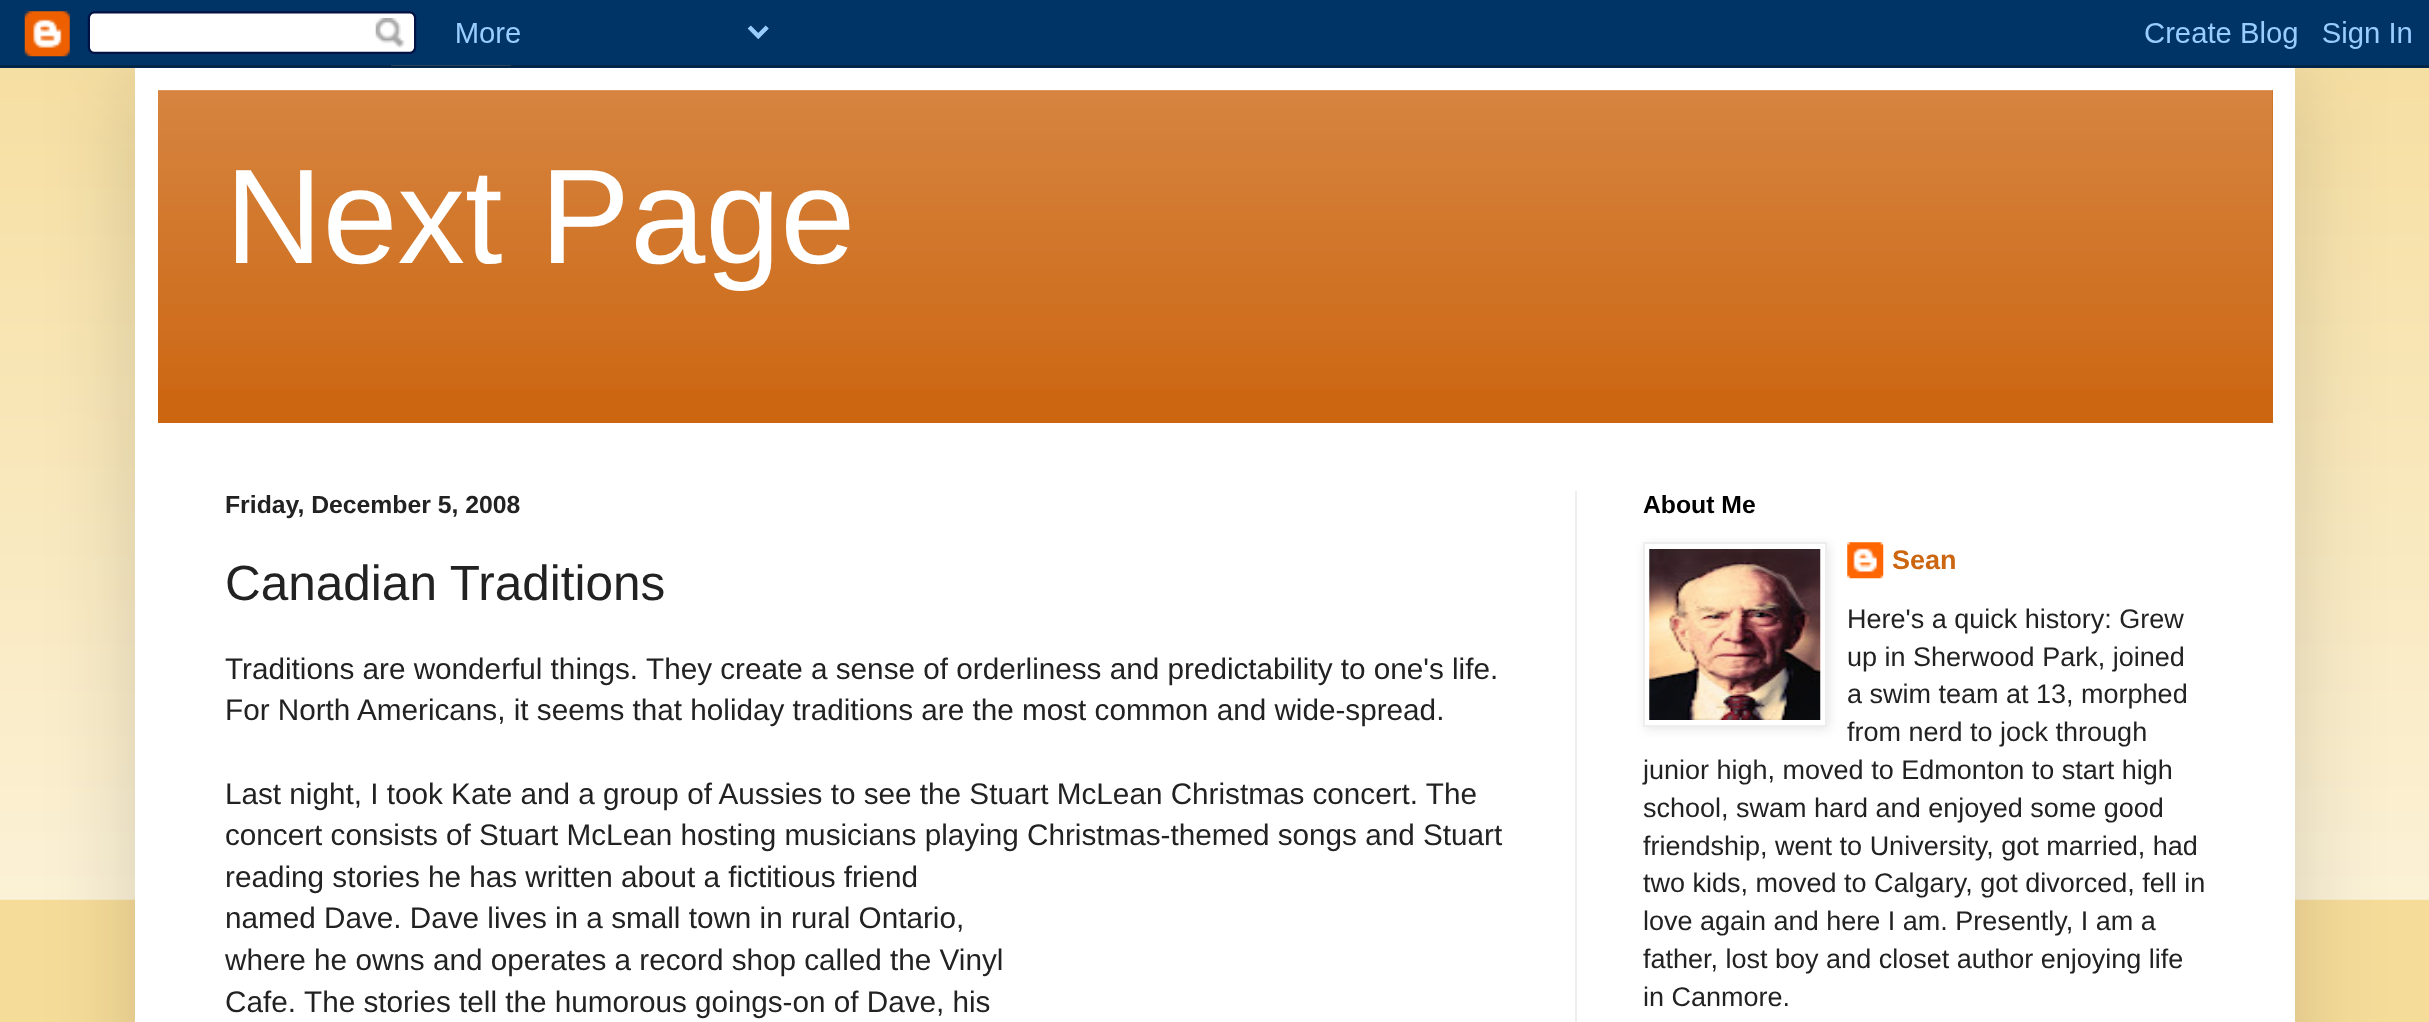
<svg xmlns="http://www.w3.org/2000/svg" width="2429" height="1022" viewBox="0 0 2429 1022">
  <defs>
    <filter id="blur1" x="-50%" y="-200%" width="200%" height="500%"><feGaussianBlur stdDeviation="45"/></filter>
    <filter id="blur2" x="-50%" y="-200%" width="200%" height="500%"><feGaussianBlur stdDeviation="5.5"/></filter>
  </defs>
  <rect width="100%" height="100%" fill="#f6dc99"/>
  <image x="0" y="65" width="2429" height="835" href="img2.png"/>
  <rect x="135" y="68" width="2160" height="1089" fill="#000000" fill-opacity="0.15" filter="url(#blur1)"/>
  <image x="0" y="0" width="2429" height="68" href="img1.png"/>
  <rect x="135" y="68" width="2160" height="954" fill="#ffffff"/>
  <rect x="158" y="90" width="2115" height="333" fill="#cc6611"/>
  <image x="158" y="90" width="2115" height="299" href="img3.png"/>
  <text x="225" y="263" font-family="Liberation Sans" font-size="135" fill="#ffffff">Next Page</text>
  <rect x="1575" y="491" width="2" height="531" fill="#eeeeee"/>
  <text x="225" y="513" font-family="Liberation Sans" font-size="24.75" font-weight="bold" fill="#222222">Friday, December 5, 2008</text>
  <text x="225" y="600" font-family="Liberation Sans" font-size="49.5" fill="#222222">Canadian Traditions</text>
  <text x="225" y="679" font-family="Liberation Sans" font-size="29.7" fill="#222222">Traditions are wonderful things.</text>
  <text x="646" y="679" font-family="Liberation Sans" font-size="29.7" fill="#222222">They create a sense of orderliness and predictability to one's life.</text>
  <text x="225" y="720" font-family="Liberation Sans" font-size="29.7" fill="#222222">For North Americans, it seems that holiday traditions are the most common and wide-spread.</text>
  <text x="225" y="804" font-family="Liberation Sans" font-size="29.7" fill="#222222">Last night, I took Kate and a group of Aussies to see the Stuart McLean Christmas concert. The</text>
  <text x="225" y="845" font-family="Liberation Sans" font-size="29.7" fill="#222222">concert consists of Stuart McLean hosting musicians playing Christmas-themed songs and Stuart</text>
  <text x="225" y="887" font-family="Liberation Sans" font-size="29.7" fill="#222222">reading stories he has written about a fictitious friend</text>
  <text x="225" y="928" font-family="Liberation Sans" font-size="29.7" fill="#222222">named Dave. Dave lives in a small town in rural Ontario,</text>
  <text x="225" y="970" font-family="Liberation Sans" font-size="29.7" fill="#222222">where he owns and operates a record shop called the Vinyl</text>
  <text x="225" y="1012" font-family="Liberation Sans" font-size="29.7" fill="#222222">Cafe.</text>
  <text x="304" y="1012" font-family="Liberation Sans" font-size="29.7" fill="#222222">The stories tell the humorous goings-on of Dave, his</text>
  <text x="1643" y="513" font-family="Liberation Sans" font-size="24.75" font-weight="bold" fill="#000000">About Me</text>
  <rect x="1645" y="545" width="184" height="184" fill="#000000" fill-opacity="0.1" filter="url(#blur2)"/>
  <rect x="1644" y="543" width="182" height="183" fill="#ffffff" stroke="#eeeeee" stroke-width="2"/>
  <image x="1649" y="549" width="172" height="171" href="img4.png"/>
  <image x="1847" y="542" width="37" height="37" href="img5.png"/>
  <text x="1892" y="569" font-family="Liberation Sans" font-size="27" font-weight="bold" fill="#cc6611">Sean</text>
  <text x="1847" y="628" font-family="Liberation Sans" font-size="27" fill="#222222">Here's a quick history: Grew</text>
  <text x="1847" y="666" font-family="Liberation Sans" font-size="27" fill="#222222">up in Sherwood Park, joined</text>
  <text x="1847" y="703" font-family="Liberation Sans" font-size="27" fill="#222222">a swim team at 13, morphed</text>
  <text x="1847" y="741" font-family="Liberation Sans" font-size="27" fill="#222222">from nerd to jock through</text>
  <text x="1643" y="779" font-family="Liberation Sans" font-size="27" fill="#222222">junior high, moved to Edmonton to start high</text>
  <text x="1643" y="817" font-family="Liberation Sans" font-size="27" fill="#222222">school, swam hard and enjoyed some good</text>
  <text x="1643" y="855" font-family="Liberation Sans" font-size="27" fill="#222222">friendship, went to University, got married, had</text>
  <text x="1643" y="892" font-family="Liberation Sans" font-size="27" fill="#222222">two kids, moved to Calgary, got divorced, fell in</text>
  <text x="1643" y="930" font-family="Liberation Sans" font-size="27" fill="#222222">love again and here I am. Presently, I am a</text>
  <text x="1643" y="968" font-family="Liberation Sans" font-size="27" fill="#222222">father, lost boy and closet author enjoying life</text>
  <text x="1643" y="1006" font-family="Liberation Sans" font-size="27" fill="#222222">in Canmore.</text>
</svg>
